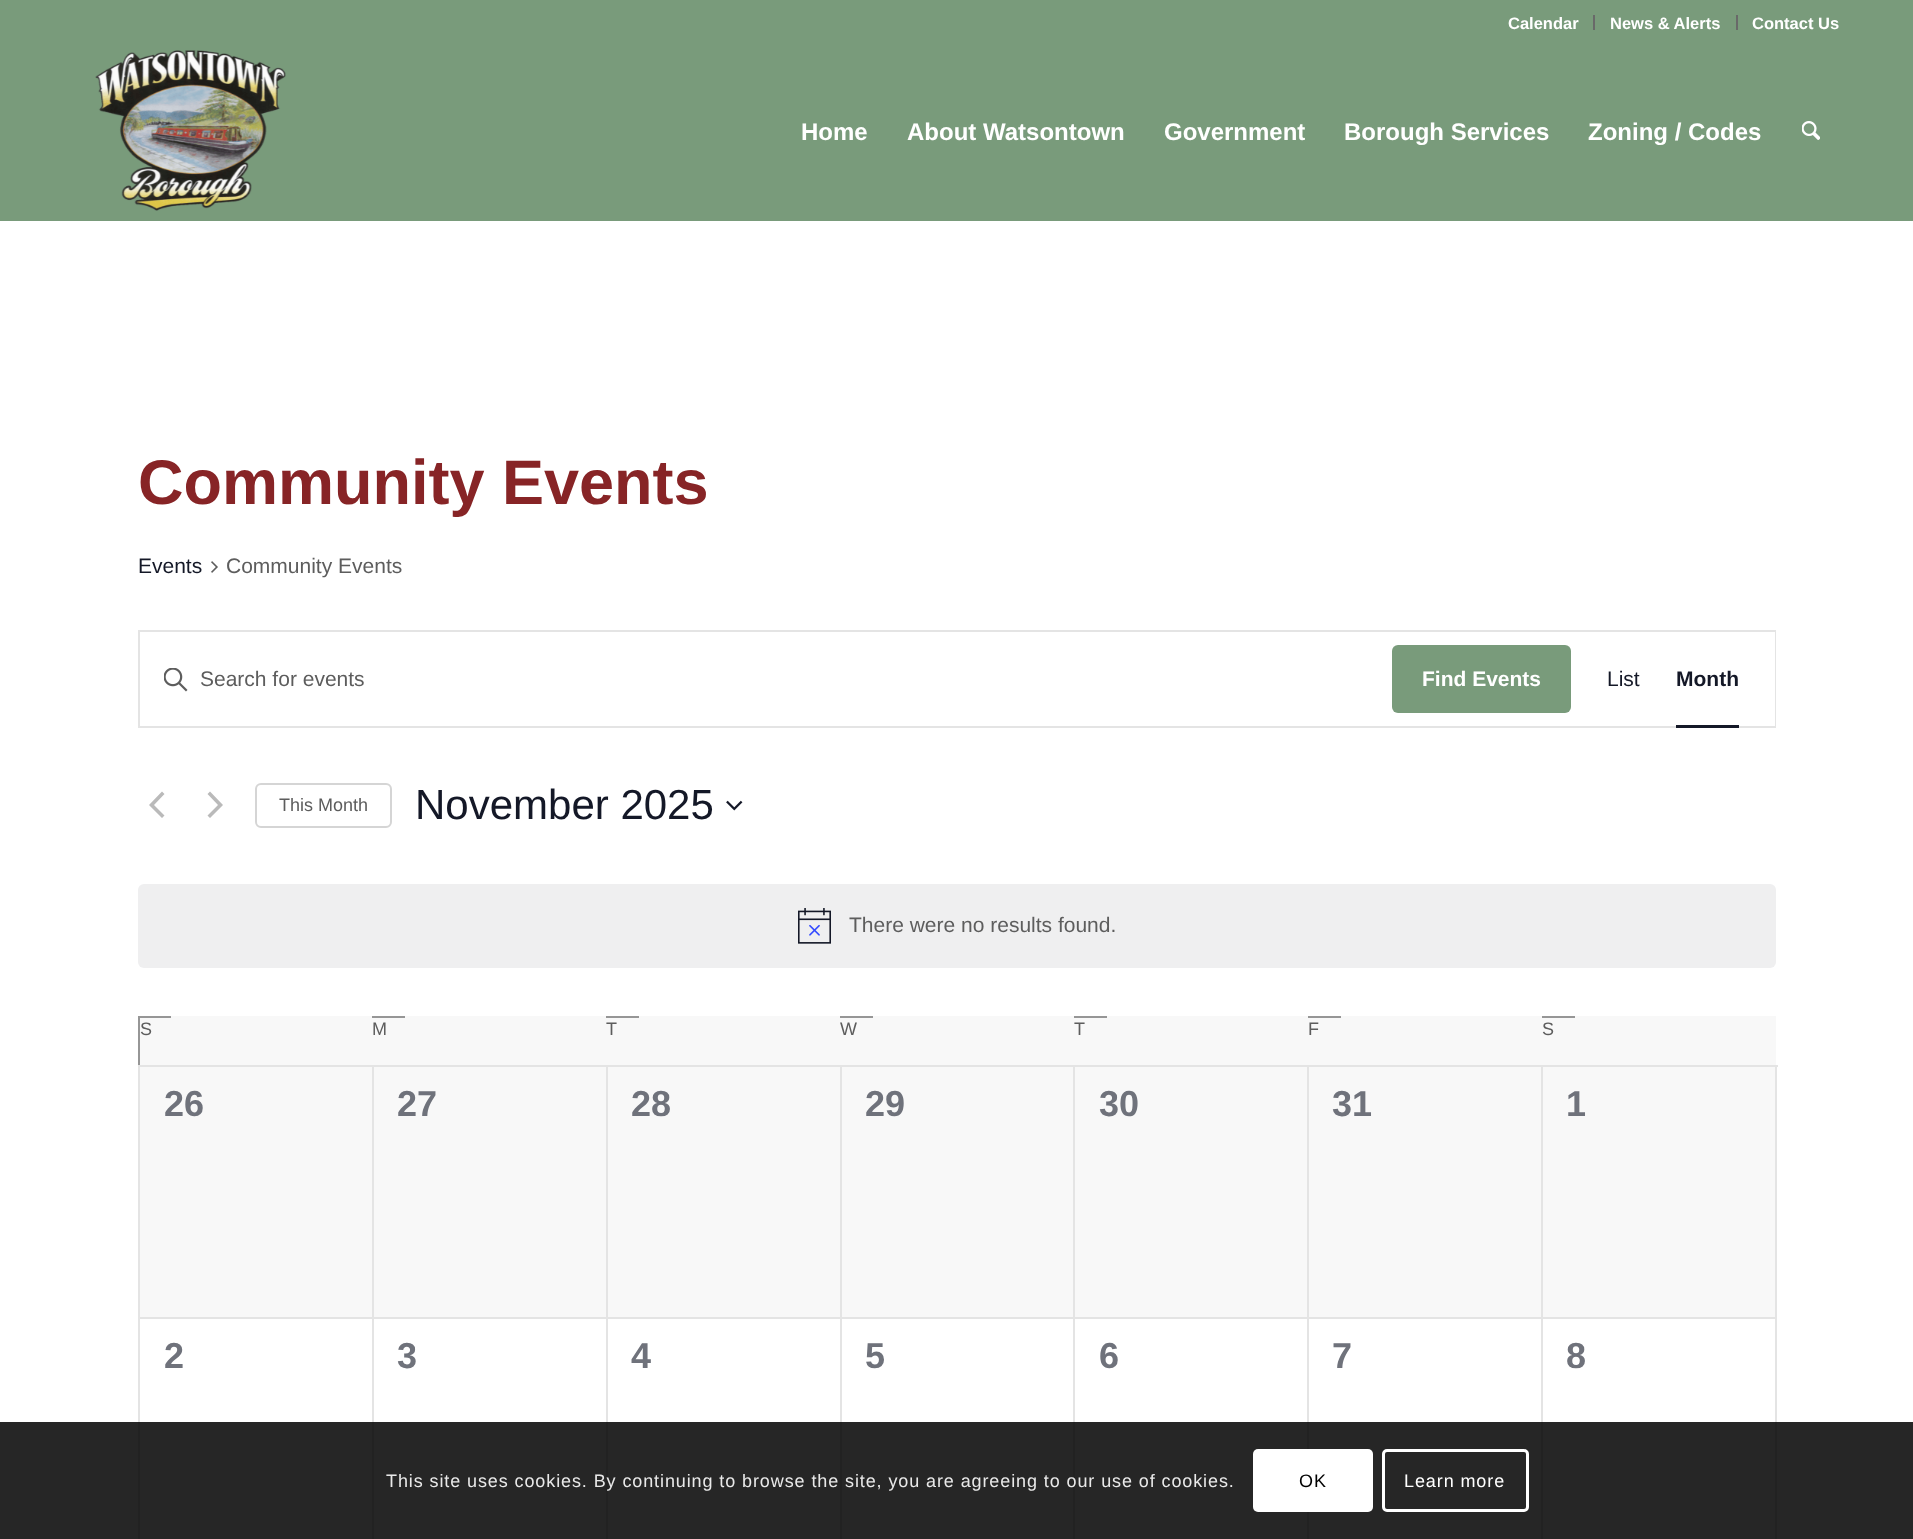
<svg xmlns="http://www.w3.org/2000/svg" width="1913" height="1539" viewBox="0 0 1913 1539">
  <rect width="100%" height="100%" fill="#799b7b"/>
  <rect x="1593" y="15" width="2" height="15" fill="#696969"/>
  <text x="1508" y="29" font-family="Liberation Sans" font-size="16.5" font-weight="bold" fill="#ffffff">Calendar</text>
  <rect x="1736" y="15" width="2" height="15" fill="#696969"/>
  <text x="1610" y="29" font-family="Liberation Sans" font-size="16.5" font-weight="bold" fill="#ffffff">News &amp; Alerts</text>
  <text x="1752" y="29" font-family="Liberation Sans" font-size="16.5" font-weight="bold" fill="#ffffff">Contact Us</text>
  <image x="95" y="50" width="191" height="161" href="img1.png"/>
  <text x="801" y="140" font-family="Liberation Sans" font-size="24" font-weight="bold" fill="#ffffff">Home</text>
  <text x="907" y="140" font-family="Liberation Sans" font-size="24" font-weight="bold" fill="#ffffff">About Watsontown</text>
  <text x="1164" y="140" font-family="Liberation Sans" font-size="24" font-weight="bold" fill="#ffffff">Government</text>
  <text x="1344" y="140" font-family="Liberation Sans" font-size="24" font-weight="bold" fill="#ffffff">Borough Services</text>
  <text x="1588" y="140" font-family="Liberation Sans" font-size="24" font-weight="bold" fill="#ffffff">Zoning / Codes</text>
  <image x="1802" y="121" width="18" height="19" href="img2.png"/>
  <rect x="0" y="221" width="1913" height="1201" fill="#ffffff"/>
  <rect x="0" y="1422" width="1913" height="117" fill="#262626"/>
  <text x="138" y="504" font-family="Liberation Sans" font-size="63" font-weight="bold" fill="#872426">Community Events</text>
  <text x="138" y="573" font-family="Liberation Sans" font-size="21" fill="#141827">Events</text>
  <image x="211" y="561" width="7" height="12" href="img3.png"/>
  <text x="226" y="573" font-family="Liberation Sans" font-size="21" fill="#5d5d5d">Community Events</text>
  <rect x="139" y="631" width="1636" height="96" fill="none" stroke="#e4e4e4" stroke-width="2"/>
  <image x="164" y="668" width="24" height="24" href="img4.png"/>
  <text x="200" y="686" font-family="Liberation Sans" font-size="21" fill="#5d5d5d">Search for events</text>
  <rect x="1392" y="645" width="179" height="68" rx="6" fill="#799b7b"/>
  <text x="1422" y="686" font-family="Liberation Sans" font-size="21" font-weight="bold" fill="#ffffff">Find Events</text>
  <rect x="1774" y="632" width="1" height="94" fill="#ffffff"/>
  <text x="1607" y="686" font-family="Liberation Sans" font-size="21" fill="#141827">List</text>
  <text x="1676" y="686" font-family="Liberation Sans" font-size="21" font-weight="bold" fill="#141827">Month</text>
  <rect x="1676" y="725" width="63" height="3" fill="#141827"/>
  <path d="M164.5 815.5L162 818L149 805L162 791.5L164.5 794L154 805Z" fill="#bababa"/>
  <path d="M207.5 794L210 791.5L223 805L210 818L207.5 815.5L218 805Z" fill="#bababa"/>
  <rect x="256" y="784" width="135" height="43" rx="5" fill="none" stroke="#d5d5d5" stroke-width="2"/>
  <text x="279" y="811" font-family="Liberation Sans" font-size="18" fill="#5d5d5d">This Month</text>
  <text x="415" y="819" font-family="Liberation Sans" font-size="42" fill="#141827">November 2025</text>
  <image x="726" y="800" width="17" height="11" href="img5.png"/>
  <rect x="138" y="884" width="1638" height="84" rx="6" fill="#efeff0"/>
  <image x="798" y="908" width="33" height="36" href="img6.png"/>
  <text x="849" y="932" font-family="Liberation Sans" font-size="21" fill="#5d5d5d">There were no results found.</text>
  <rect x="140" y="1016" width="1636" height="301" fill="#f8f8f8"/>
  <rect x="138" y="1016" width="33" height="2" fill="#969696"/>
  <rect x="138" y="1016" width="2" height="49" fill="#969696"/>
  <text x="140" y="1035" font-family="Liberation Sans" font-size="18" fill="#5d5d5d">S</text>
  <rect x="372" y="1016" width="33" height="2" fill="#969696"/>
  <text x="372" y="1035" font-family="Liberation Sans" font-size="18" fill="#5d5d5d">M</text>
  <rect x="606" y="1016" width="33" height="2" fill="#969696"/>
  <text x="606" y="1035" font-family="Liberation Sans" font-size="18" fill="#5d5d5d">T</text>
  <rect x="840" y="1016" width="33" height="2" fill="#969696"/>
  <text x="840" y="1035" font-family="Liberation Sans" font-size="18" fill="#5d5d5d">W</text>
  <rect x="1074" y="1016" width="33" height="2" fill="#969696"/>
  <text x="1074" y="1035" font-family="Liberation Sans" font-size="18" fill="#5d5d5d">T</text>
  <rect x="1308" y="1016" width="33" height="2" fill="#969696"/>
  <text x="1308" y="1035" font-family="Liberation Sans" font-size="18" fill="#5d5d5d">F</text>
  <rect x="1542" y="1016" width="33" height="2" fill="#969696"/>
  <text x="1542" y="1035" font-family="Liberation Sans" font-size="18" fill="#5d5d5d">S</text>
  <rect x="138" y="1065" width="1640" height="2" fill="#e4e4e4"/>
  <rect x="138" y="1067" width="2" height="355" fill="#e4e4e4"/>
  <rect x="372" y="1067" width="2" height="355" fill="#e4e4e4"/>
  <rect x="140" y="1317" width="234" height="2" fill="#e4e4e4"/>
  <text x="164" y="1116" font-family="Liberation Sans" font-size="36" font-weight="bold" fill="#6f727b">26</text>
  <rect x="606" y="1067" width="2" height="355" fill="#e4e4e4"/>
  <rect x="374" y="1317" width="234" height="2" fill="#e4e4e4"/>
  <text x="397" y="1116" font-family="Liberation Sans" font-size="36" font-weight="bold" fill="#6f727b">27</text>
  <rect x="840" y="1067" width="2" height="355" fill="#e4e4e4"/>
  <rect x="608" y="1317" width="234" height="2" fill="#e4e4e4"/>
  <text x="631" y="1116" font-family="Liberation Sans" font-size="36" font-weight="bold" fill="#6f727b">28</text>
  <rect x="1073" y="1067" width="2" height="355" fill="#e4e4e4"/>
  <rect x="842" y="1317" width="232" height="2" fill="#e4e4e4"/>
  <text x="865" y="1116" font-family="Liberation Sans" font-size="36" font-weight="bold" fill="#6f727b">29</text>
  <rect x="1307" y="1067" width="2" height="355" fill="#e4e4e4"/>
  <rect x="1074" y="1317" width="234" height="2" fill="#e4e4e4"/>
  <text x="1099" y="1116" font-family="Liberation Sans" font-size="36" font-weight="bold" fill="#6f727b">30</text>
  <rect x="1541" y="1067" width="2" height="355" fill="#e4e4e4"/>
  <rect x="1308" y="1317" width="234" height="2" fill="#e4e4e4"/>
  <text x="1332" y="1116" font-family="Liberation Sans" font-size="36" font-weight="bold" fill="#6f727b">31</text>
  <rect x="1775" y="1067" width="2" height="355" fill="#e4e4e4"/>
  <rect x="1542" y="1317" width="234" height="2" fill="#e4e4e4"/>
  <text x="1566" y="1116" font-family="Liberation Sans" font-size="36" font-weight="bold" fill="#6f727b">1</text>
  <rect x="138" y="1422" width="2" height="117" fill="#222222"/>
  <rect x="372" y="1422" width="2" height="117" fill="#222222"/>
  <text x="164" y="1368" font-family="Liberation Sans" font-size="36" font-weight="bold" fill="#6f727b">2</text>
  <rect x="606" y="1422" width="2" height="117" fill="#222222"/>
  <text x="397" y="1368" font-family="Liberation Sans" font-size="36" font-weight="bold" fill="#6f727b">3</text>
  <rect x="840" y="1422" width="2" height="117" fill="#222222"/>
  <text x="631" y="1368" font-family="Liberation Sans" font-size="36" font-weight="bold" fill="#6f727b">4</text>
  <rect x="1073" y="1422" width="2" height="117" fill="#222222"/>
  <text x="865" y="1368" font-family="Liberation Sans" font-size="36" font-weight="bold" fill="#6f727b">5</text>
  <rect x="1307" y="1422" width="2" height="117" fill="#222222"/>
  <text x="1099" y="1368" font-family="Liberation Sans" font-size="36" font-weight="bold" fill="#6f727b">6</text>
  <rect x="1541" y="1422" width="2" height="117" fill="#222222"/>
  <text x="1332" y="1368" font-family="Liberation Sans" font-size="36" font-weight="bold" fill="#6f727b">7</text>
  <rect x="1775" y="1422" width="2" height="117" fill="#222222"/>
  <text x="1566" y="1368" font-family="Liberation Sans" font-size="36" font-weight="bold" fill="#6f727b">8</text>
  <text x="386" y="1487" font-family="Liberation Sans" font-size="18" letter-spacing="0.9" fill="#e9e9e9">This site uses cookies. By continuing to browse the site, you are agreeing to our use of cookies.</text>
  <rect x="1253" y="1449" width="120" height="63" rx="5" fill="#ffffff"/>
  <text x="1299" y="1487" font-family="Liberation Sans" font-size="18" letter-spacing="0.9" fill="#000000">OK</text>
  <rect x="1383.5" y="1450.5" width="144" height="60" rx="3.5" fill="none" stroke="#ffffff" stroke-width="3"/>
  <text x="1404" y="1487" font-family="Liberation Sans" font-size="18" letter-spacing="0.9" fill="#ffffff">Learn more</text>
</svg>
